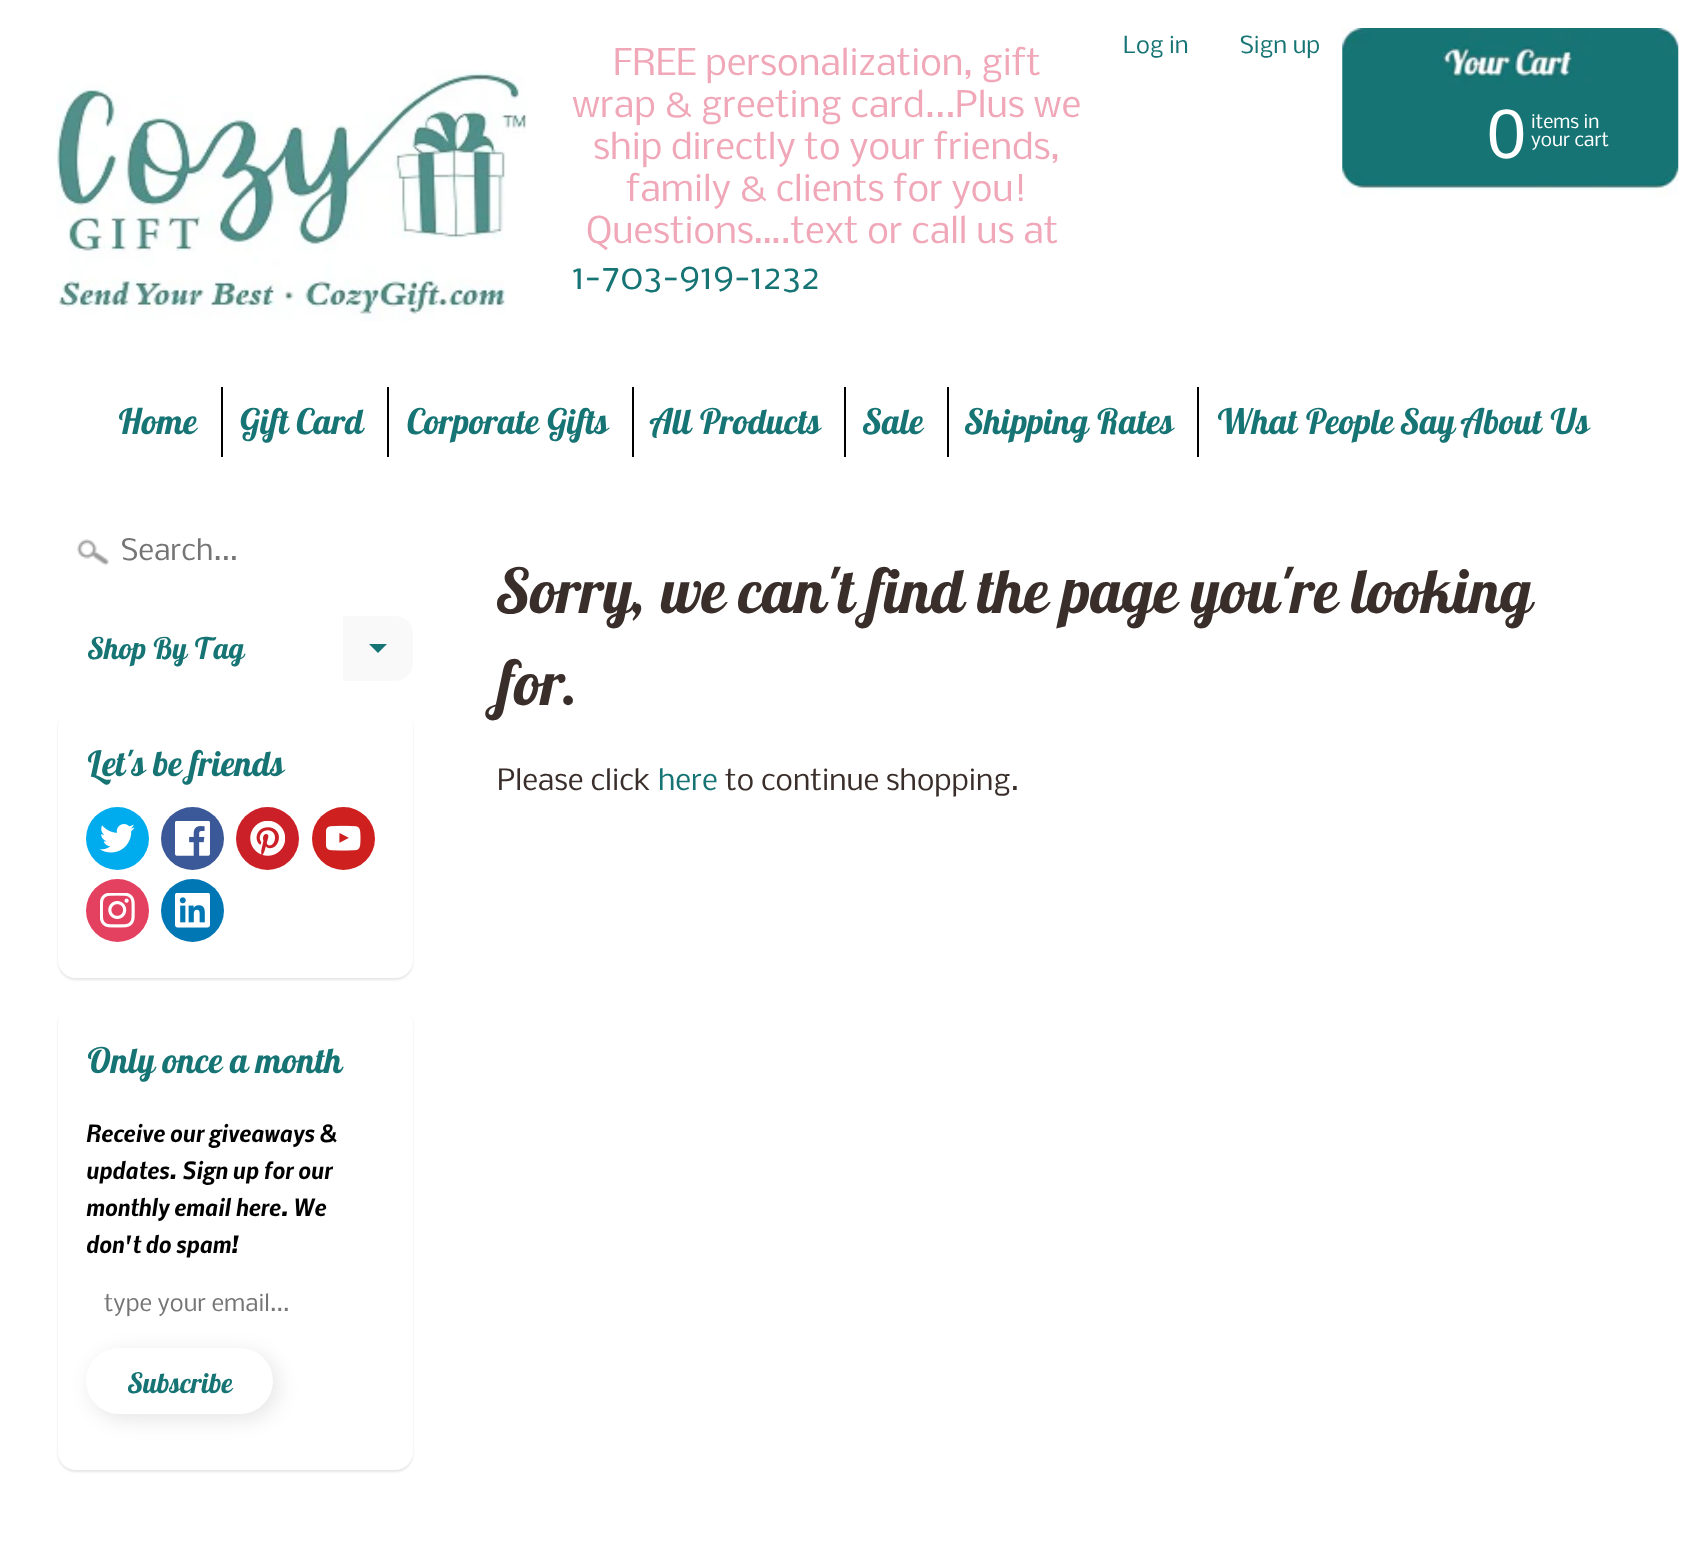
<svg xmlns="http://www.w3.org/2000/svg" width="1705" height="1568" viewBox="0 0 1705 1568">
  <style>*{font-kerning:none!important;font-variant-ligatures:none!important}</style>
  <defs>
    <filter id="blur1" x="-50%" y="-200%" width="200%" height="500%"><feGaussianBlur stdDeviation="1"/></filter>
    <filter id="blur2" x="-50%" y="-200%" width="200%" height="500%"><feGaussianBlur stdDeviation="10.5"/></filter>
  </defs>
  <rect width="100%" height="100%" fill="#ffffff"/>
  <image x="55" y="70" width="472" height="251" href="img1.png"/>
  <text x="613" y="75" font-family="Nobile" font-size="35" fill="#f0a8b9">FREE personalization, gift</text>
  <text x="572" y="117" font-family="Nobile" font-size="35" fill="#f0a8b9">wrap &amp; greeting card...Plus we</text>
  <text x="593" y="159" font-family="Nobile" font-size="35" fill="#f0a8b9">ship directly to your friends,</text>
  <text x="626" y="201" font-family="Nobile" font-size="35" fill="#f0a8b9">family &amp; clients for you!</text>
  <text x="586" y="243" font-family="Nobile" font-size="35" fill="#f0a8b9">Questions….text or call us at</text>
  <text x="572" y="289" font-family="Nobile" font-size="35" fill="#177474">1-703-919-1232</text>
  <text x="1123" y="53" font-family="Nobile" font-size="22.4" fill="#177474">Log in</text>
  <text x="1240" y="53" font-family="Nobile" font-size="22.4" fill="#177474">Sign up</text>
  <image x="1342" y="28" width="337" height="168" href="img2.png"/>
  <text x="1487" y="158" font-family="Liberation Sans" font-size="70" fill="#ffffff">0</text>
  <text x="1531" y="128" font-family="Nobile" font-size="18" fill="#ffffff">items in</text>
  <text x="1531" y="146" font-family="Nobile" font-size="18" fill="#ffffff">your cart</text>
  <text x="117" y="434" font-family="Lobster Two" font-size="35" font-weight="bold" font-style="italic" fill="#177474">Home</text>
  <rect x="221" y="387" width="2" height="70" fill="#000000"/>
  <text x="239" y="434" font-family="Lobster Two" font-size="35" font-weight="bold" font-style="italic" fill="#177474">Gift Card</text>
  <rect x="387" y="387" width="2" height="70" fill="#000000"/>
  <text x="406" y="434" font-family="Lobster Two" font-size="35" font-weight="bold" font-style="italic" fill="#177474">Corporate Gifts</text>
  <rect x="632" y="387" width="2" height="70" fill="#000000"/>
  <text x="651" y="434" font-family="Lobster Two" font-size="35" font-weight="bold" font-style="italic" fill="#177474">All Products</text>
  <rect x="844" y="387" width="2" height="70" fill="#000000"/>
  <text x="863" y="434" font-family="Lobster Two" font-size="35" font-weight="bold" font-style="italic" fill="#177474">Sale</text>
  <rect x="947" y="387" width="2" height="70" fill="#000000"/>
  <text x="965" y="434" font-family="Lobster Two" font-size="35" font-weight="bold" font-style="italic" fill="#177474">Shipping Rates</text>
  <rect x="1197" y="387" width="2" height="70" fill="#000000"/>
  <text x="1216" y="434" font-family="Lobster Two" font-size="35" font-weight="bold" font-style="italic" fill="#177474">What People Say About Us</text>
  <image x="77" y="539" width="32" height="27" href="img3.png"/>
  <text x="121" y="560" font-family="Nobile" font-size="28" fill="#757575">Search...</text>
  <text x="88" y="659" font-family="Lobster Two" font-size="29.75" font-weight="bold" font-style="italic" fill="#177474">Shop By Tag</text>
  <path d="M343 616H395C405 616 413 624 413 634V663C413 673 405 681 395 681H343Z" fill="#f9f9f9"/>
  <path d="M369 644H387L378 653Z" fill="#177474"/>
  <rect x="58" y="711" width="355" height="269" rx="18" fill="#000000" fill-opacity="0.1" filter="url(#blur1)"/>
  <rect x="58" y="709" width="355" height="269" rx="18" fill="#ffffff"/>
  <text x="86" y="776" font-family="Lobster Two" font-size="35" font-weight="bold" font-style="italic" fill="#177474">Let's be friends</text>
  <circle cx="117.5" cy="838.5" r="31.5" fill="#00aced"/>
  <image x="100" y="824" width="35" height="29" href="img4.png"/>
  <circle cx="192.5" cy="838.5" r="31.5" fill="#3b5998"/>
  <image x="175" y="821" width="35" height="35" href="img5.png"/>
  <circle cx="267.5" cy="838.5" r="31.5" fill="#cb2027"/>
  <image x="250" y="821" width="35" height="35" href="img6.png"/>
  <circle cx="343.5" cy="838.5" r="31.5" fill="#cd201f"/>
  <image x="326" y="825" width="35" height="26" href="img7.png"/>
  <circle cx="117.5" cy="910.5" r="31.5" fill="#e4405f"/>
  <image x="100" y="893" width="35" height="35" href="img8.png"/>
  <circle cx="192.5" cy="910.5" r="31.5" fill="#0077b5"/>
  <image x="175" y="893" width="35" height="35" href="img9.png"/>
  <rect x="58" y="1008" width="355" height="464" rx="18" fill="#000000" fill-opacity="0.1" filter="url(#blur1)"/>
  <rect x="58" y="1006" width="355" height="464" rx="18" fill="#ffffff"/>
  <text x="86" y="1073" font-family="Lobster Two" font-size="35" font-weight="bold" font-style="italic" fill="#177474">Only once a month</text>
  <text x="86" y="1142" font-family="Nobile" font-size="22.4" font-weight="bold" font-style="italic" fill="#000000">Receive our giveaways &amp;</text>
  <text x="86" y="1179" font-family="Nobile" font-size="22.4" font-weight="bold" font-style="italic" fill="#000000">updates. Sign up for our</text>
  <text x="86" y="1216" font-family="Nobile" font-size="22.4" font-weight="bold" font-style="italic" fill="#000000">monthly email here. We</text>
  <text x="86" y="1253" font-family="Nobile" font-size="22.4" font-weight="bold" font-style="italic" fill="#000000">don't do spam!</text>
  <text x="104" y="1311" font-family="Nobile" font-size="22.4" fill="#757575">type your email...</text>
  <rect x="91" y="1353" width="187" height="66" rx="33" fill="#000000" fill-opacity="0.1" filter="url(#blur2)"/>
  <rect x="86" y="1348" width="187" height="66" rx="33" fill="#ffffff"/>
  <text x="128" y="1393" font-family="Lobster Two" font-size="28" font-weight="bold" font-style="italic" fill="#177474">Subscribe</text>
  <text x="497" y="613" font-family="Lobster Two" font-size="61.6" font-weight="bold" font-style="italic" fill="#392e2a">Sorry, we can't find the page you're looking</text>
  <text x="497" y="705" font-family="Lobster Two" font-size="61.6" font-weight="bold" font-style="italic" fill="#392e2a">for.</text>
  <text x="497" y="790" font-family="Nobile" font-size="28" fill="#392e2a">Please click</text>
  <text x="658" y="790" font-family="Nobile" font-size="28" fill="#177474">here</text>
  <text x="725" y="790" font-family="Nobile" font-size="28" fill="#392e2a">to continue shopping.</text>
</svg>
